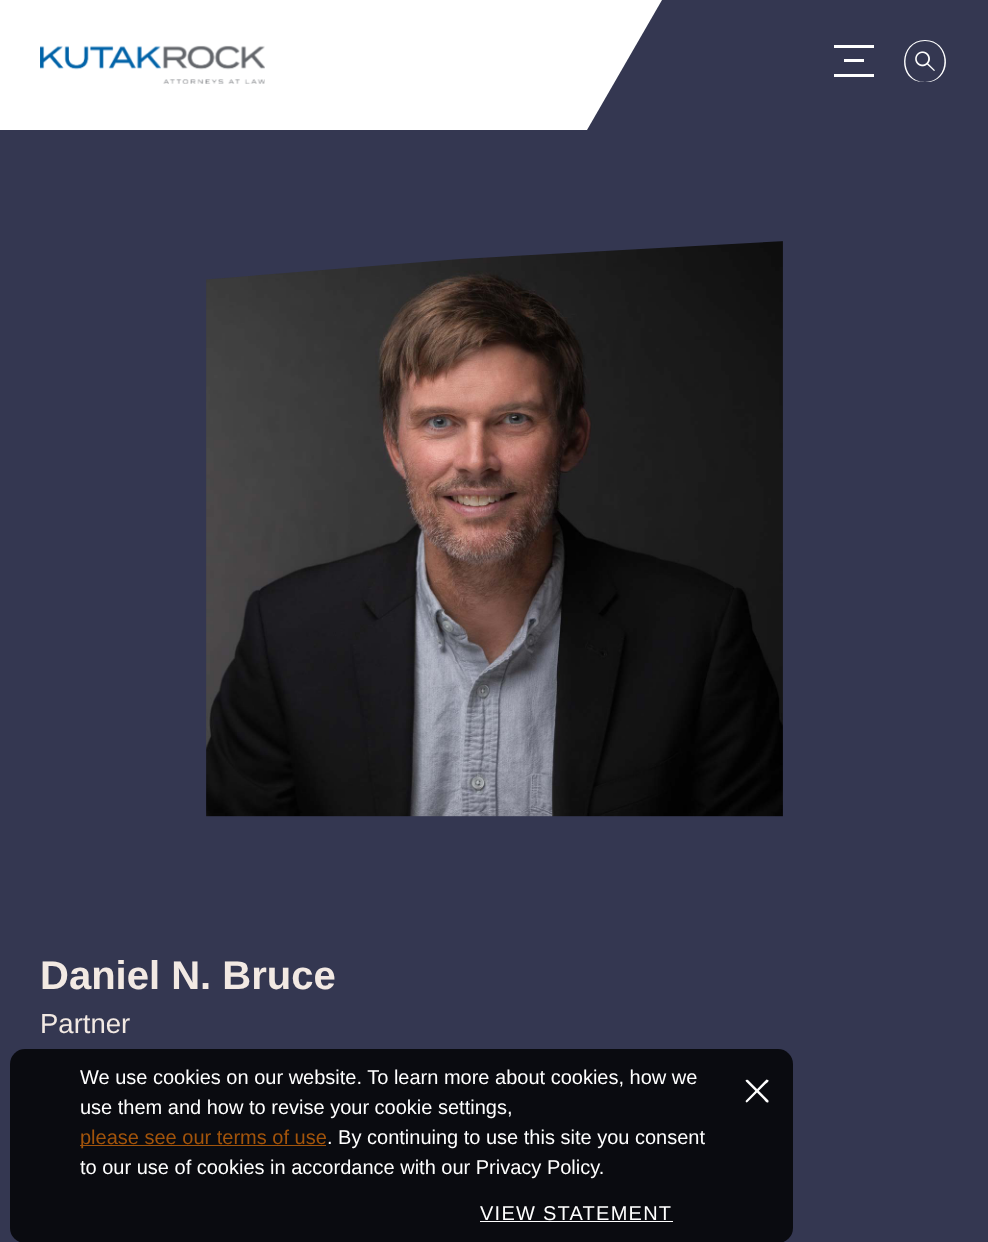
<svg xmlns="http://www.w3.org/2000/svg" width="988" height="1242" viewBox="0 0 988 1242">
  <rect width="100%" height="100%" fill="#343751"/>
  <path d="M-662 0H662L587 130H-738Z" fill="#ffffff"/>
  <image x="40" y="45" width="225" height="39" href="img1.png"/>
  <rect x="834" y="45" width="40" height="3" fill="#ffffff"/>
  <rect x="844" y="59" width="20" height="3" fill="#ffffff"/>
  <rect x="834" y="74" width="40" height="3" fill="#ffffff"/>
  <path d="M925 40C950 40 954 77 930 82H923C897 82 898 40 925 40ZM925 41C899 41 899 82 925 82C951 82 951 41 925 41Z" fill="#ffffff" fill-rule="evenodd"/>
  <image x="915" y="51" width="20" height="20" href="img2.png"/>
  <image x="206" y="241" width="577" height="576" href="img3.png"/>
  <text x="40" y="989" font-family="Liberation Sans" font-size="40" font-weight="bold" fill="#f2e9e3">Daniel N. Bruce</text>
  <text x="40" y="1033" font-family="Liberation Sans" font-size="27.5" fill="#f2e9e3">Partner</text>
  <rect x="10" y="1049" width="783" height="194" rx="15" fill="#000000" fill-opacity="0.8"/>
  <text x="80" y="1084" font-family="Liberation Sans" font-size="20" fill="#ffffff">We use cookies on our website. To learn more about cookies, how we</text>
  <text x="80" y="1114" font-family="Liberation Sans" font-size="20" fill="#ffffff">use them and how to revise your cookie settings,</text>
  <rect x="80" y="1145" width="246" height="1" fill="#a2540b"/>
  <text x="80" y="1144" font-family="Liberation Sans" font-size="20" fill="#a2540b">please see our terms of use</text>
  <text x="327" y="1144" font-family="Liberation Sans" font-size="20" fill="#ffffff">. By continuing to use this site you consent</text>
  <text x="80" y="1174" font-family="Liberation Sans" font-size="20" fill="#ffffff">to our use of cookies in accordance with our Privacy Policy.</text>
  <text x="480" y="1220" font-family="Liberation Sans" font-size="20" letter-spacing="1.25" fill="#ffffff">VIEW STATEMENT</text>
  <rect x="480" y="1221" width="193" height="1" fill="#ffffff"/>
  <path d="M748 1080L768.5 1100.5V1102C767 1104 765 1100.5 763 1098.5L746 1081.5L745.5 1080.5C746 1079.5 747 1079.5 748 1080Z" fill="#ffffff"/>
  <path d="M746 1100.5L766.5 1079.5L768 1080C770 1081 766.5 1083 764.5 1085L747.5 1102L746.5 1102.5C745.5 1102 745.5 1101 746 1100.5Z" fill="#ffffff"/>
</svg>
